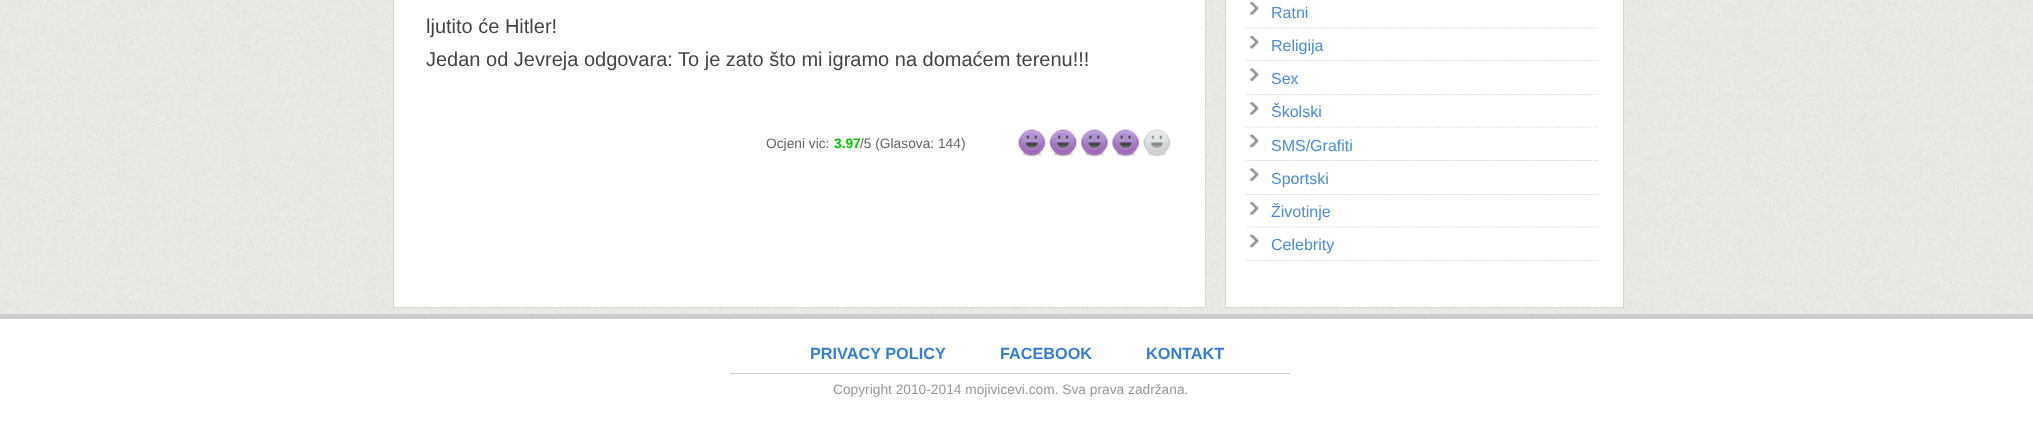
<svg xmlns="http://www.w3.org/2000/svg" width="2033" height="426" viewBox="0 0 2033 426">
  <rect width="100%" height="100%" fill="#ffffff"/>
  <image x="0" y="0" width="2033" height="314" href="img1.png"/>
  <rect x="393.5" y="-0.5" width="812" height="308" fill="#ffffff" stroke="#d8d8d8"/>
  <text x="426" y="33" font-family="Liberation Sans" font-size="20" fill="#444444">ljutito će Hitler!</text>
  <text x="426" y="66" font-family="Liberation Sans" font-size="20" fill="#444444">Jedan od Jevreja odgovara: To je zato što mi igramo na domaćem terenu!!!</text>
  <text x="766" y="148" font-family="Liberation Sans" font-size="13.75" fill="#666666">Ocjeni vic:</text>
  <text x="834" y="148" font-family="Liberation Sans" font-size="13.75" font-weight="bold" fill="#00cc00">3.97</text>
  <text x="860" y="148" font-family="Liberation Sans" font-size="13.75" fill="#666666">/5 (Glasova: 144)</text>
  <image x="1139" y="129" width="32" height="28" href="img2.png"/>
  <image x="1018" y="129" width="121" height="28" href="img3.png"/>
  <rect x="1225.5" y="-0.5" width="398" height="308" fill="#ffffff" stroke="#d8d8d8"/>
  <image x="1249" y="2" width="10" height="13" href="img4.png"/>
  <path d="M1246 28H1597.5" fill="none" stroke="#d1d1d1" stroke-width="1.2" stroke-dasharray="1.25 1.25"/>
  <text x="1271" y="18" font-family="Liberation Sans" font-size="16" fill="#4a8cdc">Ratni</text>
  <image x="1249" y="35" width="10" height="14" href="img5.png"/>
  <path d="M1246 60.5H1597.5" fill="none" stroke="#d1d1d1" stroke-width="1.2" stroke-dasharray="1.25 1.25"/>
  <text x="1271" y="51" font-family="Liberation Sans" font-size="16" fill="#4a8cdc">Religija</text>
  <image x="1249" y="68" width="10" height="14" href="img6.png"/>
  <path d="M1246 94.5H1597.5" fill="none" stroke="#d1d1d1" stroke-width="1.2" stroke-dasharray="1.25 1.25"/>
  <text x="1271" y="84" font-family="Liberation Sans" font-size="16" fill="#4a8cdc">Sex</text>
  <image x="1249" y="102" width="10" height="13" href="img4.png"/>
  <path d="M1246 127H1597.5" fill="none" stroke="#d1d1d1" stroke-width="1.2" stroke-dasharray="1.25 1.25"/>
  <text x="1271" y="117" font-family="Liberation Sans" font-size="16" fill="#4a8cdc">Školski</text>
  <image x="1249" y="134" width="10" height="14" href="img7.png"/>
  <path d="M1246 160.5H1597.5" fill="none" stroke="#d1d1d1" stroke-width="1.2" stroke-dasharray="1.25 1.25"/>
  <text x="1271" y="151" font-family="Liberation Sans" font-size="16" fill="#4a8cdc">SMS/Grafiti</text>
  <image x="1249" y="168" width="10" height="14" href="img8.png"/>
  <path d="M1246 194.5H1597.5" fill="none" stroke="#d1d1d1" stroke-width="1.2" stroke-dasharray="1.25 1.25"/>
  <text x="1271" y="184" font-family="Liberation Sans" font-size="16" fill="#4a8cdc">Sportski</text>
  <image x="1249" y="202" width="10" height="13" href="img4.png"/>
  <path d="M1246 227H1597.5" fill="none" stroke="#d1d1d1" stroke-width="1.2" stroke-dasharray="1.25 1.25"/>
  <text x="1271" y="217" font-family="Liberation Sans" font-size="16" fill="#4a8cdc">Životinje</text>
  <image x="1249" y="234" width="10" height="14" href="img7.png"/>
  <path d="M1246 260.5H1597.5" fill="none" stroke="#d1d1d1" stroke-width="1.2" stroke-dasharray="1.25 1.25"/>
  <text x="1271" y="250" font-family="Liberation Sans" font-size="16" fill="#4a8cdc">Celebrity</text>
  <rect x="0" y="314" width="2033" height="5" fill="#cccccc"/>
  <text x="810" y="359" font-family="Liberation Sans" font-size="16.25" font-weight="bold" fill="#367fd8">PRIVACY POLICY</text>
  <text x="1000" y="359" font-family="Liberation Sans" font-size="16.25" font-weight="bold" fill="#367fd8">FACEBOOK</text>
  <text x="1146" y="359" font-family="Liberation Sans" font-size="16.25" font-weight="bold" fill="#367fd8">KONTAKT</text>
  <rect x="730" y="373" width="560" height="1" fill="#cccccc"/>
  <text x="833" y="394" font-family="Liberation Sans" font-size="13.75" fill="#999999">Copyright 2010-2014 mojivicevi.com. Sva prava zadržana.</text>
</svg>
